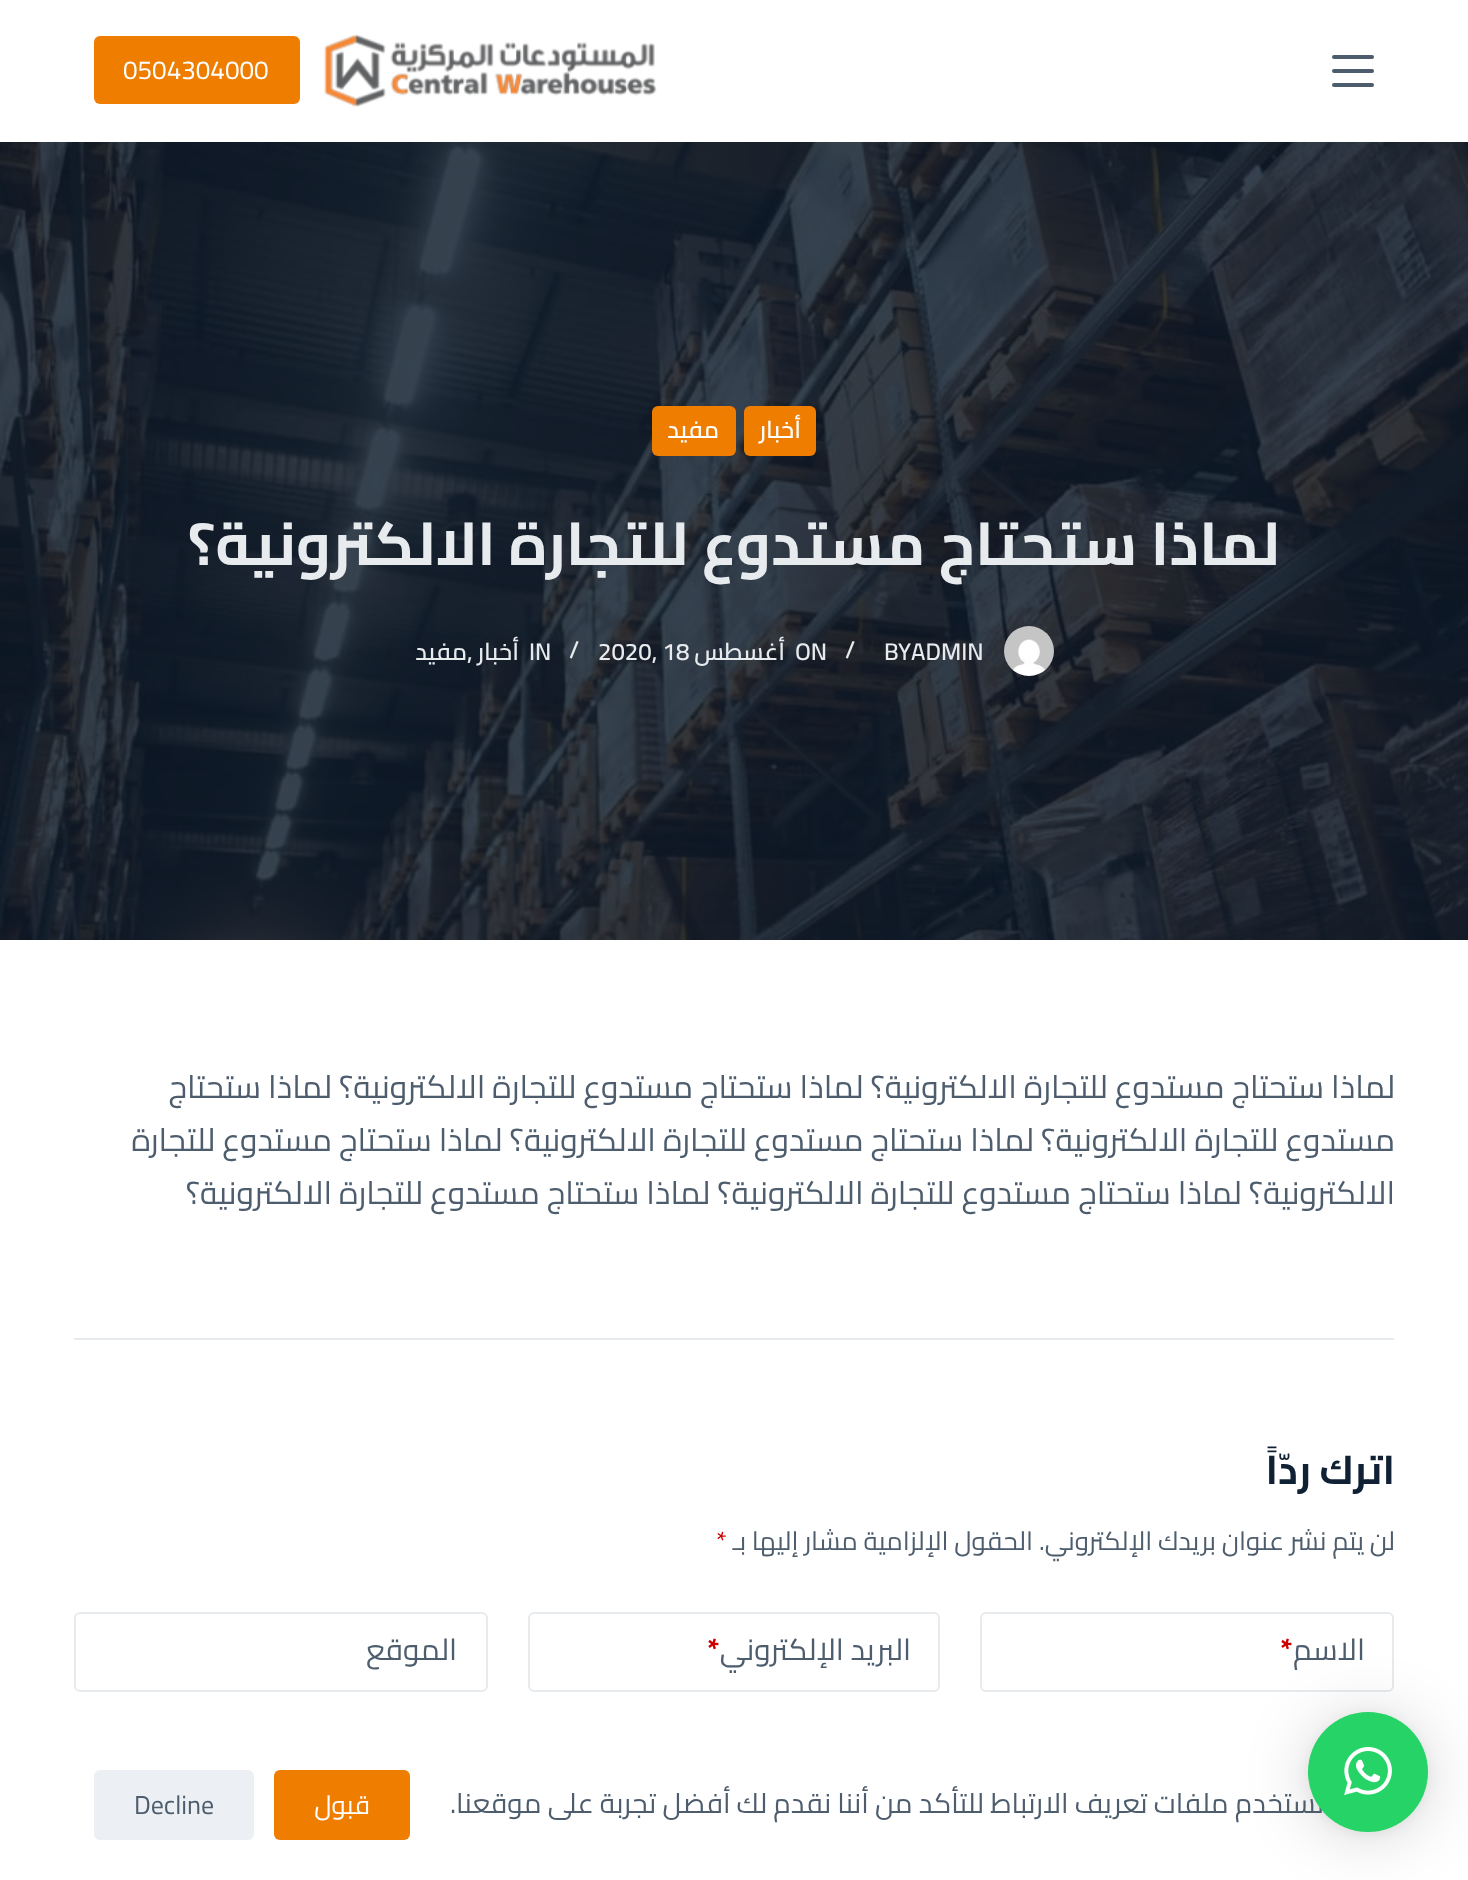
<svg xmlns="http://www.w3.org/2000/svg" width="1468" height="1880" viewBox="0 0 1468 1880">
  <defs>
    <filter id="blur1" x="-50%" y="-200%" width="200%" height="500%"><feGaussianBlur stdDeviation="32"/></filter>
    <filter id="blur2" x="-50%" y="-200%" width="200%" height="500%"><feGaussianBlur stdDeviation="6"/></filter>
  </defs>
  <rect width="100%" height="100%" fill="#ffffff"/>
  <rect x="1332" y="55" width="42" height="4" rx="2" fill="#4d5d6d"/>
  <rect x="1332" y="69" width="42" height="4" rx="2" fill="#4d5d6d"/>
  <rect x="1332" y="83" width="42" height="4" rx="2" fill="#4d5d6d"/>
  <image x="323" y="34" width="334" height="73" href="img1.png"/>
  <rect x="94" y="36" width="206" height="68" rx="6" fill="#ef7d00"/>
  <text x="123" y="79" font-family="Cairo" font-size="26" fill="#ffffff">0504304000</text>
  <image x="0" y="142" width="1468" height="798" href="img2.png"/>
  <rect x="744" y="406" width="72" height="50" rx="6" fill="#ef7d00"/>
  <text x="801" y="438" font-family="Cairo" font-size="24" font-weight="600" direction="rtl" fill="#ffffff">أخبار</text>
  <rect x="652" y="406" width="84" height="50" rx="6" fill="#ef7d00"/>
  <text x="719" y="438" font-family="Cairo" font-size="24" font-weight="600" direction="rtl" fill="#ffffff">مفيد</text>
  <text x="1280" y="565" font-family="Cairo" font-size="60" font-weight="bold" direction="rtl" fill="#e7ebee">لماذا ستحتاج مستدوع للتجارة الالكترونية؟</text>
  <image x="1004" y="626" width="50" height="50" href="img3.png"/>
  <text x="884" y="660" font-family="Cairo" font-size="24" font-weight="600" fill="#e7ebee">BYADMIN</text>
  <text x="845" y="658" font-family="Cairo" font-size="24" font-weight="600" fill="#e7ebee">/</text>
  <text x="795" y="660" font-family="Cairo" font-size="24" font-weight="600" fill="#e7ebee">ON</text>
  <text x="785" y="660" font-family="Cairo" font-size="24" font-weight="600" direction="rtl" fill="#e7ebee">أغسطس</text>
  <text x="598" y="660" font-family="Cairo" font-size="24" font-weight="600" fill="#e7ebee">2020, 18</text>
  <text x="569" y="658" font-family="Cairo" font-size="24" font-weight="600" fill="#e7ebee">/</text>
  <text x="529" y="660" font-family="Cairo" font-size="24" font-weight="600" fill="#e7ebee">IN</text>
  <text x="519" y="660" font-family="Cairo" font-size="24" font-weight="600" direction="rtl" fill="#e7ebee">أخبار</text>
  <text x="467" y="660" font-family="Cairo" font-size="24" font-weight="600" fill="#e7ebee">,</text>
  <text x="467" y="660" font-family="Cairo" font-size="24" font-weight="600" direction="rtl" fill="#e7ebee">مفيد</text>
  <text x="1395" y="1098" font-family="Cairo" font-size="32" direction="rtl" fill="#4d5d6d">لماذا ستحتاج مستدوع للتجارة الالكترونية؟ لماذا ستحتاج مستدوع للتجارة الالكترونية؟</text>
  <text x="332" y="1098" font-family="Cairo" font-size="32" direction="rtl" fill="#4d5d6d">لماذا ستحتاج</text>
  <text x="1395" y="1151" font-family="Cairo" font-size="32" direction="rtl" fill="#4d5d6d">مستدوع للتجارة الالكترونية؟ لماذا ستحتاج مستدوع للتجارة الالكترونية؟ لماذا ستحتاج مستدوع للتجارة</text>
  <text x="1395" y="1204" font-family="Cairo" font-size="32" direction="rtl" fill="#4d5d6d">الالكترونية؟ لماذا ستحتاج مستدوع للتجارة الالكترونية؟ لماذا ستحتاج مستدوع للتجارة الالكترونية؟</text>
  <rect x="74" y="1338" width="1320" height="2" fill="#e7ebee"/>
  <text x="1395" y="1484" font-family="Cairo" font-size="40" font-weight="bold" direction="rtl" fill="#102136">اترك ردّاً</text>
  <text x="1395" y="1550" font-family="Cairo" font-size="26" direction="rtl" fill="#4d5d6d">لن يتم نشر عنوان بريدك الإلكتروني.</text>
  <text x="1033" y="1550" font-family="Cairo" font-size="26" direction="rtl" fill="#4d5d6d">الحقول الإلزامية مشار إليها بـ</text>
  <text x="716" y="1550" font-family="Cairo" font-size="26" fill="#cc0000">*</text>
  <rect x="981" y="1613" width="412" height="78" rx="5" fill="none" stroke="#e7ebee" stroke-width="2"/>
  <text x="1365" y="1660" font-family="Cairo" font-size="30" direction="rtl" fill="#4d5d6d">الاسم</text>
  <text x="1280" y="1660" font-family="Cairo" font-size="30" font-weight="bold" fill="#cc0000">*</text>
  <rect x="529" y="1613" width="410" height="78" rx="5" fill="none" stroke="#e7ebee" stroke-width="2"/>
  <text x="911" y="1660" font-family="Cairo" font-size="30" direction="rtl" fill="#4d5d6d">البريد الإلكتروني</text>
  <text x="707" y="1660" font-family="Cairo" font-size="30" font-weight="bold" fill="#cc0000">*</text>
  <rect x="75" y="1613" width="412" height="78" rx="5" fill="none" stroke="#e7ebee" stroke-width="2"/>
  <text x="457" y="1660" font-family="Cairo" font-size="30" direction="rtl" fill="#4d5d6d">الموقع</text>
  <rect x="1308" y="1716" width="120" height="120" rx="60" fill="#000000" fill-opacity="0.16" filter="url(#blur1)"/>
  <rect x="1308" y="1714" width="120" height="120" rx="60" fill="#000000" fill-opacity="0.06" filter="url(#blur2)"/>
  <text x="1374" y="1813" font-family="Cairo" font-size="28" direction="rtl" fill="#4d5d6d">نحن نستخدم ملفات تعريف الارتباط للتأكد من أننا نقدم لك أفضل تجربة على موقعنا.</text>
  <circle cx="1368" cy="1772" r="60" fill="#25d366"/>
  <image x="1344" y="1747" width="48" height="48" href="img4.png"/>
  <rect x="274" y="1770" width="136" height="70" rx="6" fill="#ef7d00"/>
  <text x="370" y="1814" font-family="Cairo" font-size="26" direction="rtl" fill="#ffffff">قبول</text>
  <rect x="94" y="1770" width="160" height="70" rx="6" fill="#eceff3"/>
  <text x="134" y="1814" font-family="Cairo" font-size="26" fill="#4d5d6d">Decline</text>
</svg>
